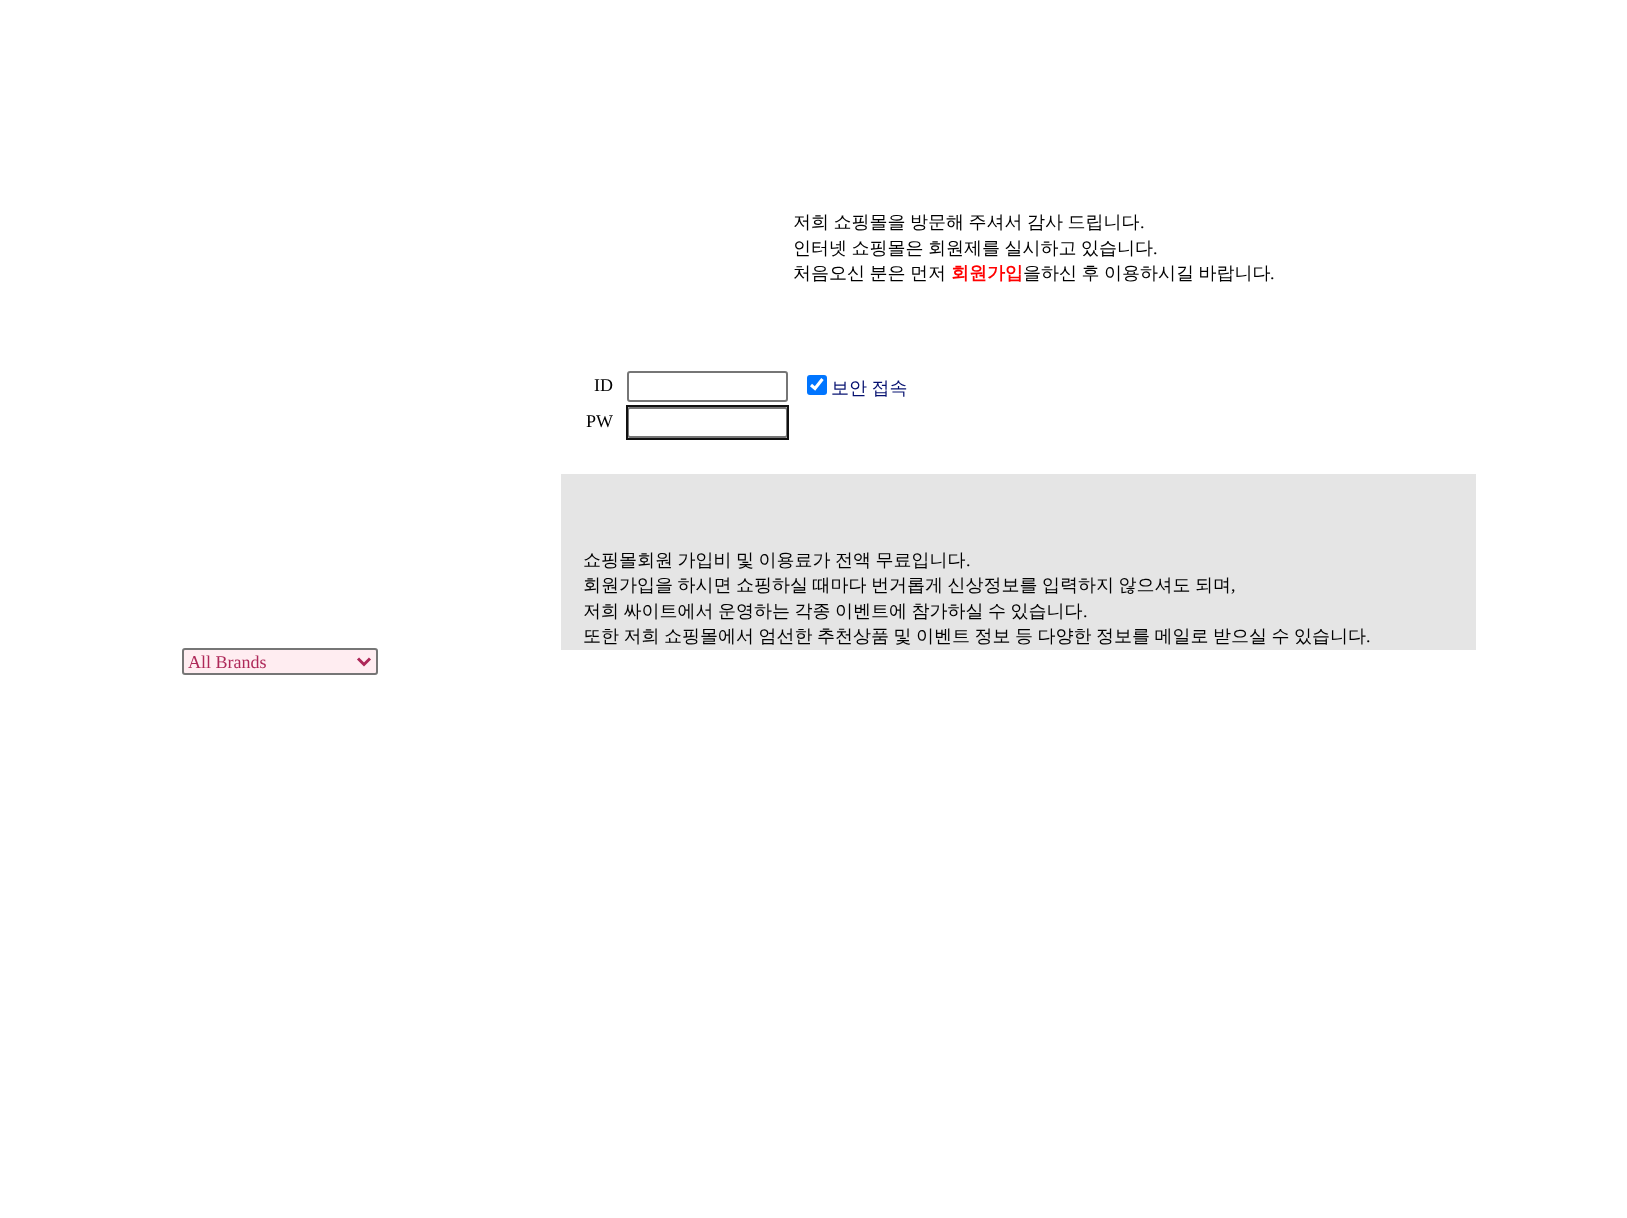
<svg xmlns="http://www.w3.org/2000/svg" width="1627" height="1218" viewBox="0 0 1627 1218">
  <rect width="100%" height="100%" fill="#ffffff"/>
  <text x="793" y="228" word-spacing="-0.9" font-family="WenQuanYi Zen Hei" font-size="18" font-weight="500" fill="#000000">저희 쇼핑몰을 방문해 주셔서 감사 드립니다</text>
  <text x="1140" y="228" font-family="Liberation Serif" font-size="18" fill="#000000">.</text>
  <text x="793" y="254" word-spacing="-0.9" font-family="WenQuanYi Zen Hei" font-size="18" font-weight="500" fill="#000000">인터넷 쇼핑몰은 회원제를 실시하고 있습니다</text>
  <text x="1153" y="254" font-family="Liberation Serif" font-size="18" fill="#000000">.</text>
  <text x="793" y="279" word-spacing="-0.9" font-family="WenQuanYi Zen Hei" font-size="18" font-weight="500" fill="#000000">처음오신 분은 먼저</text>
  <text x="951" y="279" font-family="WenQuanYi Zen Hei" font-size="18" font-weight="bold" fill="#ff0000">회원가입</text>
  <text x="1023" y="279" word-spacing="-0.9" font-family="WenQuanYi Zen Hei" font-size="18" font-weight="500" fill="#000000">을하신 후 이용하시길 바랍니다</text>
  <text x="1270" y="279" font-family="Liberation Serif" font-size="18" fill="#000000">.</text>
  <text x="594" y="391" font-family="Liberation Serif" font-size="18" fill="#000000">ID</text>
  <rect x="628" y="372" width="159" height="29" rx="2" fill="none" stroke="#767676" stroke-width="2"/>
  <rect x="807" y="375" width="20" height="20" rx="3" fill="#0075ff"/>
  <path d="M811 385L815 388.5L822.5 379" fill="none" stroke="#ffffff" stroke-width="3.1"/>
  <text x="831" y="394" word-spacing="-0.9" font-family="WenQuanYi Zen Hei" font-size="18" font-weight="500" fill="#040f6f">보안 접속</text>
  <text x="586" y="427" font-family="Liberation Serif" font-size="18" fill="#000000">PW</text>
  <rect x="628" y="408" width="159" height="29" rx="2" fill="none" stroke="#767676" stroke-width="2"/>
  <rect x="627" y="406" width="161" height="33" fill="none" stroke="#101010" stroke-width="2"/>
  <rect x="561" y="474" width="915" height="176" fill="#e5e5e5"/>
  <text x="583" y="566" word-spacing="-0.9" font-family="WenQuanYi Zen Hei" font-size="18" font-weight="500" fill="#000000">쇼핑몰회원 가입비 및 이용료가 전액 무료입니다</text>
  <text x="966" y="566" font-family="Liberation Serif" font-size="18" fill="#000000">.</text>
  <text x="583" y="591" word-spacing="-0.9" font-family="WenQuanYi Zen Hei" font-size="18" font-weight="500" fill="#000000">회원가입을 하시면 쇼핑하실 때마다 번거롭게 신상정보를 입력하지 않으셔도 되며</text>
  <text x="1231" y="591" font-family="Liberation Serif" font-size="18" fill="#000000">,</text>
  <text x="583" y="617" word-spacing="-0.9" font-family="WenQuanYi Zen Hei" font-size="18" font-weight="500" fill="#000000">저희 싸이트에서 운영하는 각종 이벤트에 참가하실 수 있습니다</text>
  <text x="1083" y="617" font-family="Liberation Serif" font-size="18" fill="#000000">.</text>
  <text x="583" y="642" word-spacing="-0.9" font-family="WenQuanYi Zen Hei" font-size="18" font-weight="500" fill="#000000">또한 저희 쇼핑몰에서 엄선한 추천상품 및 이벤트 정보 등 다양한 정보를 메일로 받으실 수 있습니다</text>
  <text x="1366" y="642" font-family="Liberation Serif" font-size="18" fill="#000000">.</text>
  <rect x="183" y="649" width="194" height="25" rx="2" fill="#ffedf1" stroke="#767676" stroke-width="2"/>
  <path d="M358 658.5L364 664.5L370 658.5" fill="none" stroke="#ae2859" stroke-width="3"/>
  <text x="188" y="668" font-family="Liberation Serif" font-size="18" fill="#ae2859">All Brands</text>
</svg>
